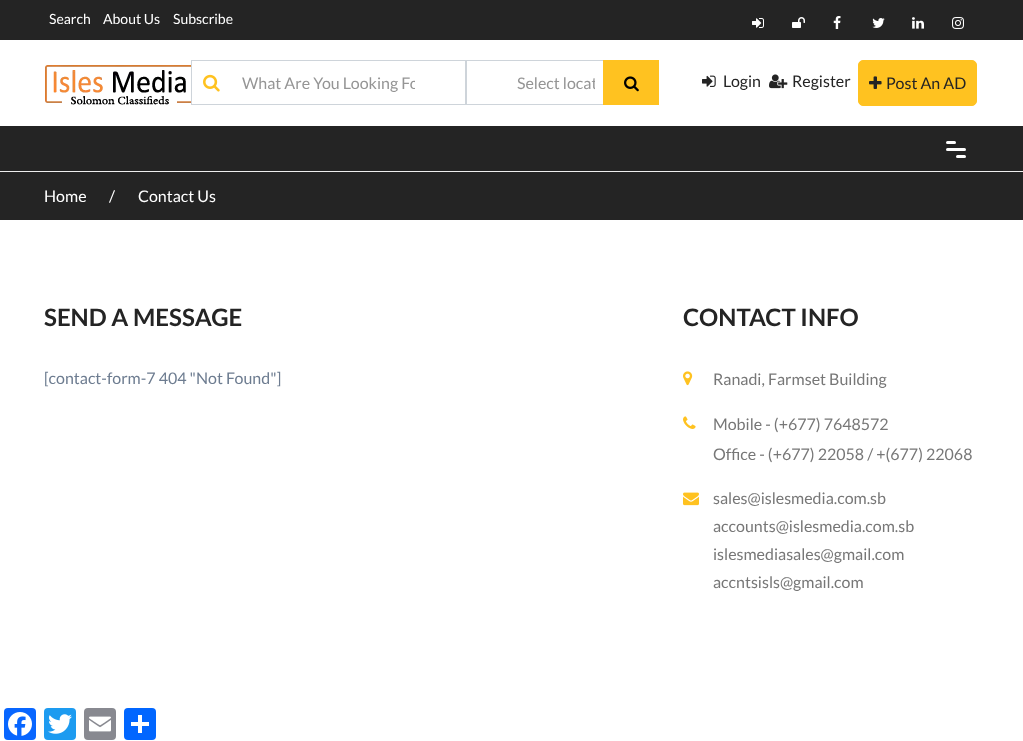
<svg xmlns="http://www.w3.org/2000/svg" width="1023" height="741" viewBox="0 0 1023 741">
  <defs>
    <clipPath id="clip1"><rect x="242" y="73" width="173" height="19"/></clipPath>
    <clipPath id="clip2"><rect x="517" y="71" width="78" height="24"/></clipPath>
  </defs>
  <rect width="100%" height="100%" fill="#ffffff"/>
  <rect x="0" y="0" width="1023" height="40" fill="#242424"/>
  <text x="49" y="24" font-family="Lato" font-size="14" fill="#ffffff">Search</text>
  <text x="103" y="24" font-family="Lato" font-size="14" fill="#ffffff">About Us</text>
  <text x="173" y="24" font-family="Lato" font-size="14" fill="#ffffff">Subscribe</text>
  <image x="752" y="18" width="12" height="10" href="img1.png"/>
  <image x="792" y="17" width="13" height="11" href="img2.png"/>
  <image x="833" y="16" width="8" height="13" href="img3.png"/>
  <image x="872" y="18" width="13" height="10" href="img4.png"/>
  <image x="912" y="17" width="12" height="12" href="img5.png"/>
  <image x="952" y="17" width="12" height="12" href="img6.png"/>
  <image x="45" y="65" width="146" height="40" href="img7.png"/>
  <rect x="191.5" y="60.5" width="274" height="44" fill="none" stroke="#ced4da"/>
  <image x="203" y="74" width="17" height="18" href="img8.png"/>
  <g clip-path="url(#clip1)">
    <text x="242" y="89" font-family="Lato" font-size="16" fill="#959595">What Are You Looking Fo</text>
  </g>
  <rect x="466.5" y="60.5" width="164" height="44" fill="none" stroke="#ced4da"/>
  <g clip-path="url(#clip2)">
    <text x="517" y="89" font-family="Lato" font-size="16" fill="#959595">Select locat</text>
  </g>
  <rect x="603" y="60" width="56" height="45" fill="#ffc220"/>
  <image x="624" y="76" width="15" height="16" href="img9.png"/>
  <image x="702" y="75" width="14" height="12" href="img10.png"/>
  <text x="723" y="87" font-family="Lato" font-size="16" fill="#242424">Login</text>
  <image x="769" y="74" width="19" height="15" href="img11.png"/>
  <text x="792" y="87" font-family="Lato" font-size="16" fill="#242424">Register</text>
  <rect x="858.5" y="60.5" width="118" height="45" rx="4.5" fill="#ffc220" stroke="#ffc220"/>
  <image x="869" y="76" width="13" height="13" href="img12.png"/>
  <text x="886" y="89" font-family="Lato" font-size="16" fill="#242424">Post An AD</text>
  <rect x="0" y="126" width="1023" height="45" fill="#242424"/>
  <rect x="0" y="171" width="1023" height="1" fill="#eeeeee"/>
  <rect x="946" y="141" width="10" height="3" rx="1.5" fill="#ffffff"/>
  <rect x="946" y="148" width="20" height="3" rx="1.5" fill="#ffffff"/>
  <rect x="956" y="155" width="10" height="3" rx="1.5" fill="#ffffff"/>
  <rect x="0" y="172" width="1023" height="48" fill="#242424"/>
  <text x="44" y="202" font-family="Lato" font-size="16" fill="#ffffff">Home</text>
  <text x="109" y="202" font-family="Lato" font-size="16" fill="#ffffff">/</text>
  <text x="138" y="202" font-family="Lato" font-size="16" fill="#ffffff">Contact Us</text>
  <text x="44" y="326" font-family="Lato" font-size="24" font-weight="bold" fill="#242424">SEND A MESSAGE</text>
  <text x="44" y="384" font-family="Lato" font-size="16" fill="#6d7c90">[contact-form-7 404 "Not Found"]</text>
  <text x="683" y="326" font-family="Lato" font-size="24" font-weight="bold" fill="#242424">CONTACT INFO</text>
  <image x="683" y="371" width="10" height="15" href="img13.png"/>
  <text x="713" y="385" font-family="Lato" font-size="16" fill="#777777">Ranadi, Farmset Building</text>
  <image x="683" y="416" width="13" height="13" href="img14.png"/>
  <text x="713" y="430" font-family="Lato" font-size="16" fill="#777777">Mobile - (+677) 7648572</text>
  <text x="713" y="460" font-family="Lato" font-size="16" fill="#777777">Office - (+677) 22058 / +(677) 22068</text>
  <image x="683" y="492" width="16" height="14" href="img15.png"/>
  <text x="713" y="504" font-family="Lato" font-size="16" fill="#777777">sales@islesmedia.com.sb</text>
  <text x="713" y="532" font-family="Lato" font-size="16" fill="#777777">accounts@islesmedia.com.sb</text>
  <text x="713" y="560" font-family="Lato" font-size="16" fill="#777777">islesmediasales@gmail.com</text>
  <text x="713" y="588" font-family="Lato" font-size="16" fill="#777777">accntsisls@gmail.com</text>
  <rect x="4" y="708" width="32" height="32" rx="4" fill="#0866ff"/>
  <image x="8" y="712" width="24" height="24" href="img16.png"/>
  <rect x="44" y="708" width="32" height="32" rx="4" fill="#1d9bf0"/>
  <image x="48" y="714" width="24" height="20" href="img17.png"/>
  <rect x="84" y="708" width="32" height="32" rx="4" fill="#888990"/>
  <image x="89" y="716" width="22" height="16" href="img18.png"/>
  <rect x="124" y="708" width="32" height="32" rx="4" fill="#0166ff"/>
  <rect x="138" y="715" width="4" height="18" fill="#ffffff"/>
  <rect x="131" y="722" width="18" height="4" fill="#ffffff"/>
</svg>
